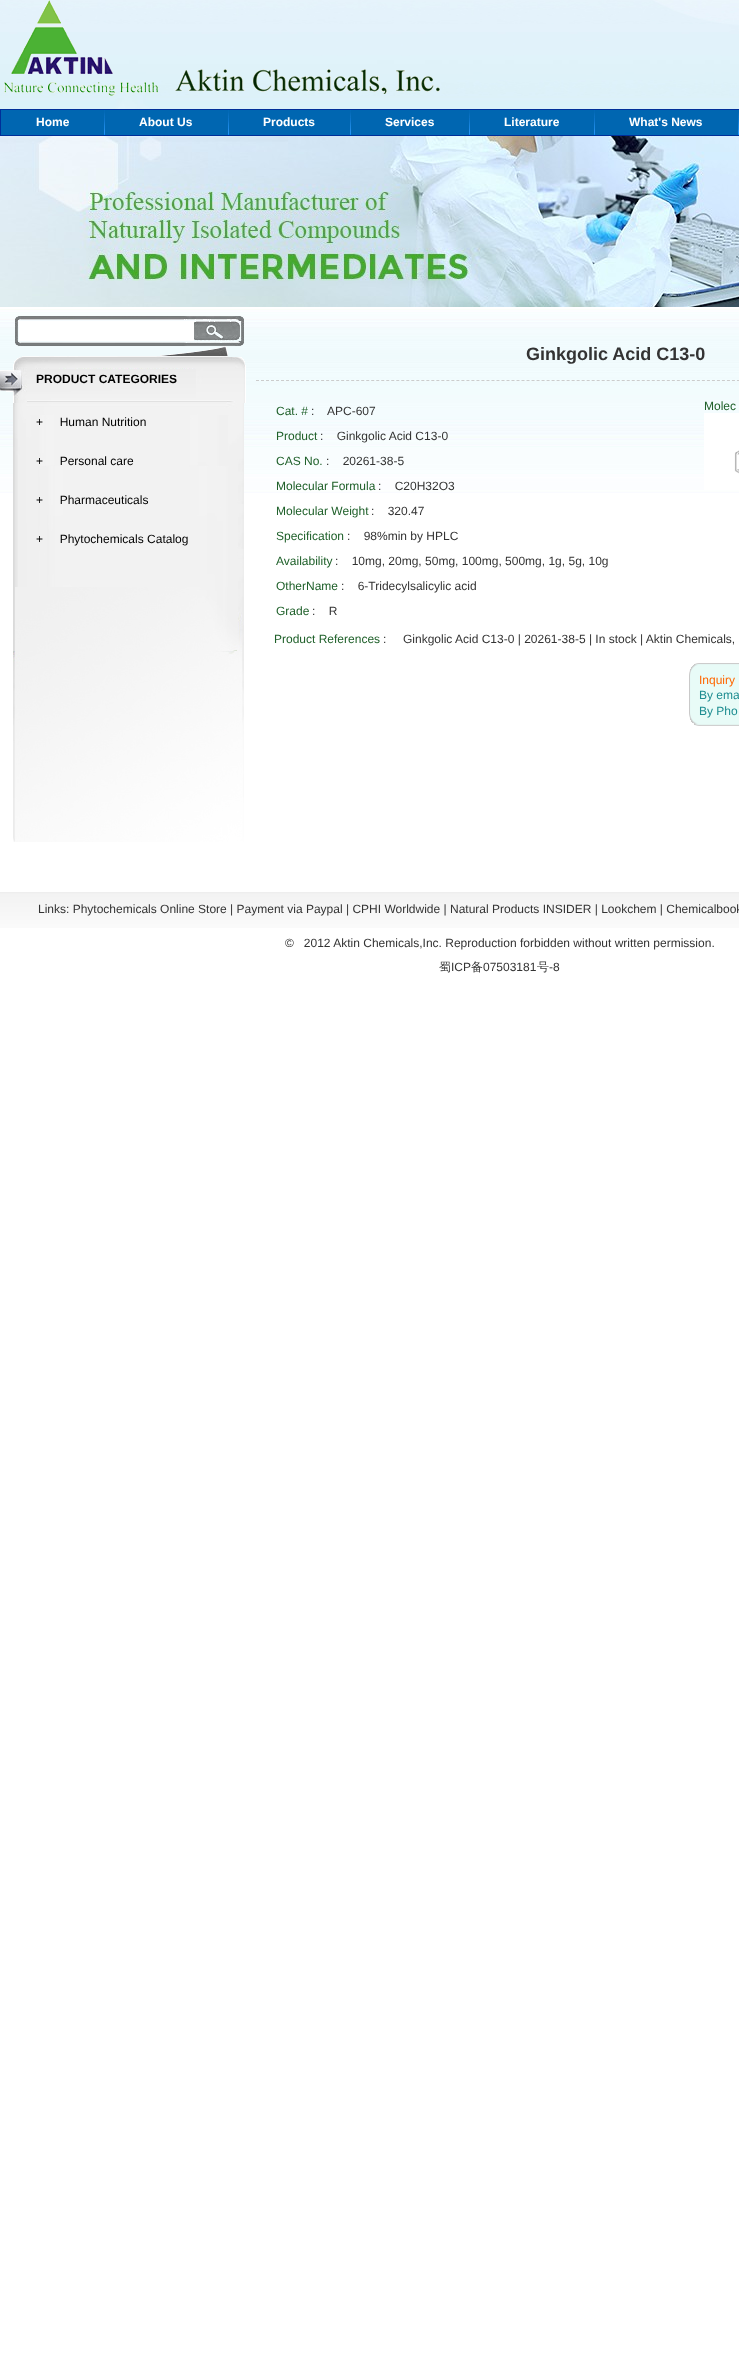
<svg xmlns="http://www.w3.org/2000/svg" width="739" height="2364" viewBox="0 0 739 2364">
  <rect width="100%" height="100%" fill="#ffffff"/>
  <image x="0" y="0" width="739" height="109" href="img1.png"/>
  <image x="4" y="0" width="436" height="96" href="img2.png"/>
  <rect x="1" y="110" width="737" height="25" fill="#0066b1"/>
  <rect x="0.5" y="109.5" width="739" height="26" fill="none" stroke="#002f99"/>
  <text x="36" y="126" font-family="Liberation Sans" font-size="12" font-weight="bold" fill="#ffffff">Home</text>
  <image x="104" y="110" width="1" height="25" href="img3.png"/>
  <text x="139" y="126" font-family="Liberation Sans" font-size="12" font-weight="bold" fill="#ffffff">About Us</text>
  <image x="228" y="110" width="1" height="25" href="img3.png"/>
  <text x="263" y="126" font-family="Liberation Sans" font-size="12" font-weight="bold" fill="#ffffff">Products</text>
  <image x="350" y="110" width="1" height="25" href="img3.png"/>
  <text x="385" y="126" font-family="Liberation Sans" font-size="12" font-weight="bold" fill="#ffffff">Services</text>
  <image x="469" y="110" width="1" height="25" href="img3.png"/>
  <text x="504" y="126" font-family="Liberation Sans" font-size="12" font-weight="bold" fill="#ffffff">Literature</text>
  <image x="594" y="110" width="1" height="25" href="img3.png"/>
  <text x="629" y="126" font-family="Liberation Sans" font-size="12" font-weight="bold" fill="#ffffff">What's News</text>
  <image x="738" y="110" width="1" height="25" href="img3.png"/>
  <image x="0" y="136" width="739" height="171" href="img4.png"/>
  <image x="0" y="309" width="739" height="184" href="img5.png"/>
  <image x="15" y="316" width="229" height="30" href="img6.png"/>
  <rect x="19" y="321" width="175" height="20" fill="#ffffff"/>
  <image x="0" y="346" width="246" height="57" href="img7.png"/>
  <text x="36" y="383" font-family="Liberation Sans" font-size="12" font-weight="bold" fill="#000000">PRODUCT CATEGORIES</text>
  <image x="13" y="403" width="231" height="439" href="img8.png"/>
  <text x="36" y="426" font-family="Liberation Sans" font-size="12" fill="#000000" xml:space="preserve">+     Human Nutrition</text>
  <text x="36" y="465" font-family="Liberation Sans" font-size="12" fill="#000000" xml:space="preserve">+     Personal care</text>
  <text x="36" y="504" font-family="Liberation Sans" font-size="12" fill="#000000" xml:space="preserve">+     Pharmaceuticals</text>
  <text x="36" y="543" font-family="Liberation Sans" font-size="12" fill="#000000" xml:space="preserve">+     Phytochemicals Catalog</text>
  <path d="M256 380.5H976" fill="none" stroke="#cccccc" stroke-dasharray="3 2.01"/>
  <text x="526" y="360" font-family="Liberation Sans" font-size="18" font-weight="bold" fill="#333333">Ginkgolic Acid C13-0</text>
  <text x="276" y="415" font-family="Liberation Sans" font-size="12" fill="#1f602a">Cat. #</text>
  <text x="311" y="415" font-family="Liberation Sans" font-size="12" fill="#333333" xml:space="preserve">:    APC-607</text>
  <text x="276" y="440" font-family="Liberation Sans" font-size="12" fill="#1f602a">Product</text>
  <text x="320" y="440" font-family="Liberation Sans" font-size="12" fill="#333333" xml:space="preserve">:    Ginkgolic Acid C13-0</text>
  <text x="276" y="465" font-family="Liberation Sans" font-size="12" fill="#1f602a">CAS No.</text>
  <text x="326" y="465" font-family="Liberation Sans" font-size="12" fill="#333333" xml:space="preserve">:    20261-38-5</text>
  <text x="276" y="490" font-family="Liberation Sans" font-size="12" fill="#1f602a">Molecular Formula</text>
  <text x="378" y="490" font-family="Liberation Sans" font-size="12" fill="#333333" xml:space="preserve">:    C20H32O3</text>
  <text x="276" y="515" font-family="Liberation Sans" font-size="12" fill="#1f602a">Molecular Weight</text>
  <text x="371" y="515" font-family="Liberation Sans" font-size="12" fill="#333333" xml:space="preserve">:    320.47</text>
  <text x="276" y="540" font-family="Liberation Sans" font-size="12" fill="#1f602a">Specification</text>
  <text x="347" y="540" font-family="Liberation Sans" font-size="12" fill="#333333" xml:space="preserve">:    98%min by HPLC</text>
  <text x="276" y="565" font-family="Liberation Sans" font-size="12" fill="#1f602a">Availability</text>
  <text x="335" y="565" font-family="Liberation Sans" font-size="12" fill="#333333" xml:space="preserve">:    10mg, 20mg, 50mg, 100mg, 500mg, 1g, 5g, 10g</text>
  <text x="276" y="590" font-family="Liberation Sans" font-size="12" fill="#1f602a">OtherName</text>
  <text x="341" y="590" font-family="Liberation Sans" font-size="12" fill="#333333" xml:space="preserve">:    6-Tridecylsalicylic acid</text>
  <text x="276" y="615" font-family="Liberation Sans" font-size="12" fill="#1f602a">Grade</text>
  <text x="312" y="615" font-family="Liberation Sans" font-size="12" fill="#333333" xml:space="preserve">:    R</text>
  <text x="704" y="410" font-family="Liberation Sans" font-size="12" fill="#1f602a">Molec</text>
  <rect x="704" y="413" width="35" height="77" fill="#ffffff"/>
  <image x="734" y="450" width="5" height="24" href="img9.png"/>
  <text x="274" y="643" font-family="Liberation Sans" font-size="12" fill="#1f602a">Product References</text>
  <text x="383" y="643" font-family="Liberation Sans" font-size="12" fill="#333333">:</text>
  <text x="403" y="643" font-family="Liberation Sans" font-size="12" fill="#333333">Ginkgolic Acid C13-0 | 20261-38-5 | In stock | Aktin Chemicals,</text>
  <image x="689" y="663" width="50" height="63" href="img10.png"/>
  <text x="699" y="684" font-family="Liberation Sans" font-size="12" fill="#ff6600">Inquiry</text>
  <text x="699" y="699" font-family="Liberation Sans" font-size="12" fill="#1e8d91">By ema</text>
  <text x="699" y="715" font-family="Liberation Sans" font-size="12" fill="#1e8d91">By Pho</text>
  <image x="0" y="892" width="739" height="36" href="img11.png"/>
  <text x="38" y="913" font-family="Liberation Sans" font-size="12" fill="#333333">Links: Phytochemicals Online Store | Payment via Paypal | CPHI Worldwide | Natural Products INSIDER | Lookchem | Chemicalbook</text>
  <text x="285" y="947" font-family="Liberation Sans" font-size="12" fill="#333333" xml:space="preserve">©   2012 Aktin Chemicals,Inc. Reproduction forbidden without written permission.</text>
  <text x="439" y="971" font-family="WenQuanYi Zen Hei" font-size="12" font-weight="500" fill="#333333">蜀</text>
  <text x="451" y="971" font-family="Liberation Sans" font-size="12" fill="#333333">ICP</text>
  <text x="471" y="971" font-family="WenQuanYi Zen Hei" font-size="12" font-weight="500" fill="#333333">备</text>
  <text x="483" y="971" font-family="Liberation Sans" font-size="12" fill="#333333">07503181</text>
  <text x="537" y="971" font-family="WenQuanYi Zen Hei" font-size="12" font-weight="500" fill="#333333">号</text>
  <text x="549" y="971" font-family="Liberation Sans" font-size="12" fill="#333333">-8</text>
</svg>
